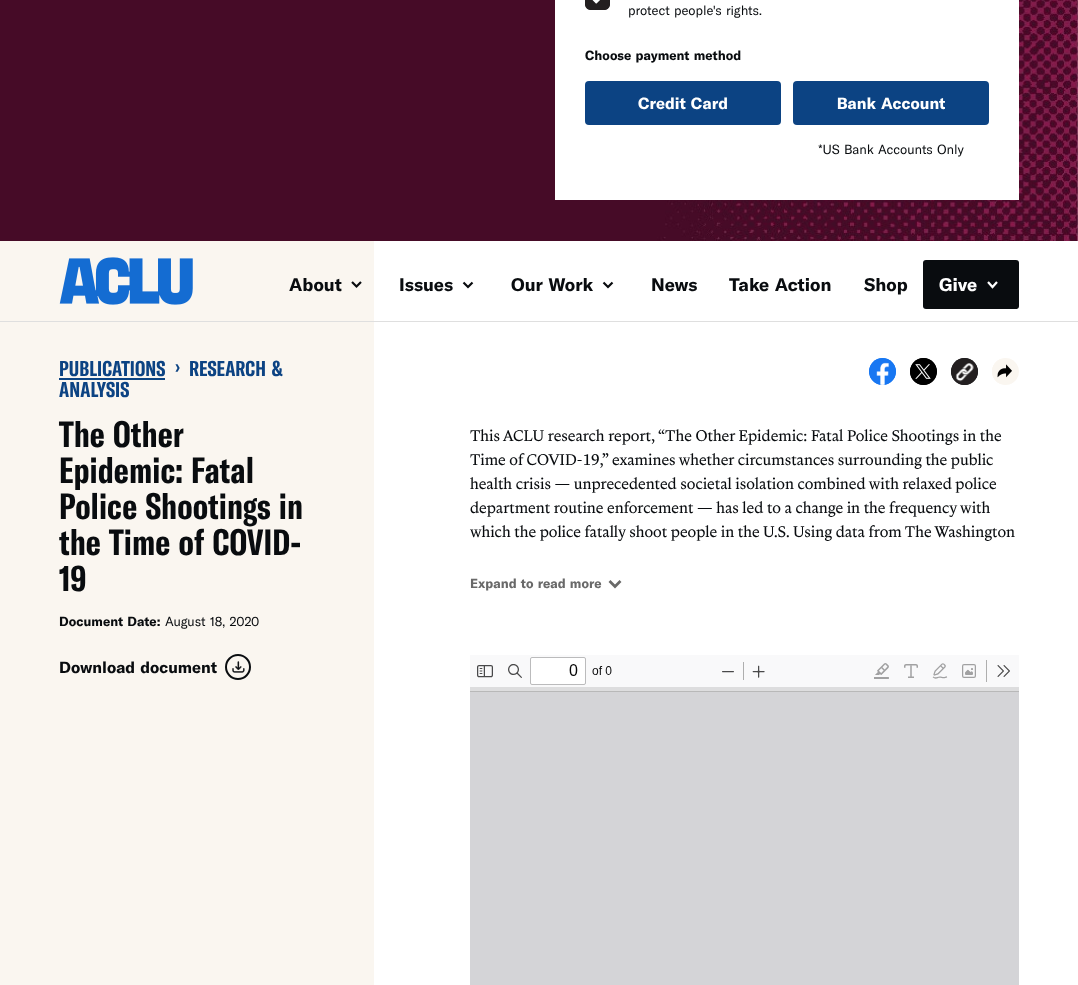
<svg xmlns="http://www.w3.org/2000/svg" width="1078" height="985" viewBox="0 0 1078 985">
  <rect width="100%" height="100%" fill="#ffffff"/>
  <image x="0" y="0" width="1078" height="241" href="img1.png"/>
  <rect x="555" y="0" width="464" height="200" fill="#ffffff"/>
  <image x="585" y="0" width="404" height="157" href="img2.png"/>
  <rect x="0" y="241" width="374" height="744" fill="#faf6f0"/>
  <rect x="0" y="321" width="1078" height="1" fill="#dfdfdf"/>
  <image x="59" y="257" width="134" height="48" href="img3.png"/>
  <text x="289" y="291" font-family="GT America" font-size="18" font-weight="bold" fill="#090c0f">About</text>
  <path d="M352 282L356.5 286.5L361 282" fill="none" stroke="#090c0f" stroke-width="2.2"/>
  <text x="399" y="291" font-family="GT America" font-size="18" font-weight="bold" fill="#090c0f">Issues</text>
  <path d="M463.5 282.5L468 287L472.5 282.5" fill="none" stroke="#090c0f" stroke-width="2.2"/>
  <text x="511" y="291" word-spacing="1" font-family="GT America" font-size="18" font-weight="bold" fill="#090c0f">Our Work</text>
  <path d="M603.5 282.5L608 287L612.5 282.5" fill="none" stroke="#090c0f" stroke-width="2.2"/>
  <text x="651" y="291" font-family="GT America" font-size="18" font-weight="bold" fill="#090c0f">News</text>
  <text x="729" y="291" word-spacing="1" font-family="GT America" font-size="18" font-weight="bold" fill="#090c0f">Take Action</text>
  <text x="864" y="291" font-family="GT America" font-size="18" font-weight="bold" fill="#090c0f">Shop</text>
  <rect x="923" y="260" width="96" height="49" rx="3" fill="#090c0f"/>
  <text x="939" y="291" font-family="GT America" font-size="18" font-weight="bold" fill="#ffffff">Give</text>
  <path d="M988 282L992.5 287L997 282" fill="none" stroke="#ffffff" stroke-width="2.2"/>
  <text x="59" y="376" font-family="'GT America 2'" font-size="21" font-weight="bold" letter-spacing="0.1" fill="#0c4383">PUBLICATIONS</text>
  <rect x="59" y="378" width="106" height="2" fill="#0c4483"/>
  <text x="175" y="373" font-family="'GT America 2'" font-size="18" font-weight="bold" letter-spacing="0.1" fill="#0c4383">›</text>
  <text x="189" y="376" word-spacing="2" font-family="'GT America 2'" font-size="21" font-weight="bold" letter-spacing="0.1" fill="#0c4383">RESEARCH &amp;</text>
  <text x="59" y="397" font-family="'GT America 2'" font-size="21" font-weight="bold" letter-spacing="0.1" fill="#0c4383">ANALYSIS</text>
  <text x="59" y="447" word-spacing="2" font-family="'GT America 2'" font-size="36" font-weight="bold" letter-spacing="0.1" fill="#090c0f">The Other</text>
  <text x="59" y="483" word-spacing="2" font-family="'GT America 2'" font-size="36" font-weight="bold" letter-spacing="0.1" fill="#090c0f">Epidemic: Fatal</text>
  <text x="59" y="519" word-spacing="2" font-family="'GT America 2'" font-size="36" font-weight="bold" letter-spacing="0.1" fill="#090c0f">Police Shootings in</text>
  <text x="59" y="555" word-spacing="2" font-family="'GT America 2'" font-size="36" font-weight="bold" letter-spacing="0.1" fill="#090c0f">the Time of COVID-</text>
  <text x="59" y="591" font-family="'GT America 2'" font-size="36" font-weight="bold" letter-spacing="0.1" fill="#090c0f">19</text>
  <text x="59" y="626" word-spacing="1" font-family="GT America" font-size="13" font-weight="bold" fill="#090c0f">Document Date:</text>
  <text x="165" y="626" word-spacing="1" font-family="GT America" font-size="13" letter-spacing="-0.1" fill="#090c0f">August 18, 2020</text>
  <text x="59" y="673" word-spacing="1" font-family="GT America" font-size="16" font-weight="bold" fill="#090c0f">Download document</text>
  <image x="232" y="661" width="13" height="12" href="img4.png"/>
  <circle cx="238" cy="667" r="12" fill="none" stroke="#0a0d10" stroke-width="2"/>
  <circle cx="882.5" cy="371.5" r="13.5" fill="#1877f2"/>
  <image x="869" y="358" width="27" height="27" href="img5.png"/>
  <circle cx="923.5" cy="371.5" r="13.5" fill="#000000"/>
  <image x="910" y="358" width="27" height="27" href="img6.png"/>
  <circle cx="964.5" cy="371.5" r="13.5" fill="#090c0f"/>
  <image x="951" y="358" width="27" height="27" href="img7.png"/>
  <circle cx="1005.5" cy="371.5" r="13.5" fill="#faf6f0"/>
  <image x="992" y="359" width="20" height="25" href="img8.png"/>
  <text x="470" y="441" font-family="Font" font-size="16" fill="#090c0f">This ACLU research report, “The Other Epidemic: Fatal Police Shootings in the</text>
  <text x="470" y="465" font-family="Font" font-size="16" fill="#090c0f">Time of COVID-19,” examines whether circumstances surrounding the public</text>
  <text x="470" y="489" font-family="Font" font-size="16" fill="#090c0f">health crisis — unprecedented societal isolation combined with relaxed police</text>
  <text x="470" y="513" font-family="Font" font-size="16" fill="#090c0f">department routine enforcement — has led to a change in the frequency with</text>
  <text x="470" y="537" font-family="Font" font-size="16" fill="#090c0f">which the police fatally shoot people in the U.S. Using data from The Washington</text>
  <text x="470" y="588" word-spacing="1" font-family="GT America" font-size="13" font-weight="bold" fill="#696969">Expand to read more</text>
  <path d="M609.5 581L615 586.5L620.5 581" fill="none" stroke="#696968" stroke-width="2.7"/>
  <image x="470" y="655" width="549" height="330" href="img9.png"/>
</svg>
